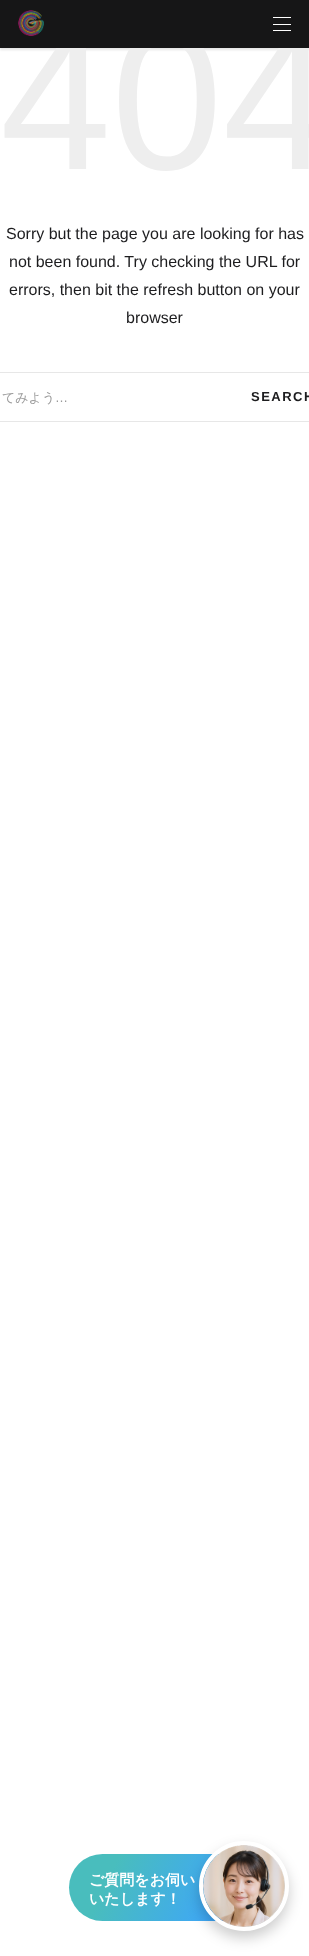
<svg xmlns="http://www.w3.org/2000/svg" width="309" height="1956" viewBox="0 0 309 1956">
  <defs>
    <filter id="blur1" x="-50%" y="-200%" width="200%" height="500%"><feGaussianBlur stdDeviation="1"/></filter>
    <linearGradient id="g1" gradientUnits="userSpaceOnUse" x1="75" y1="1841" x2="273" y2="1934"><stop offset="0.21" stop-color="#49bdbd"/><stop offset="0.79" stop-color="#3da4ff"/></linearGradient>
    <filter id="blur2" x="-50%" y="-200%" width="200%" height="500%"><feGaussianBlur stdDeviation="7"/></filter>
  </defs>
  <rect width="100%" height="100%" fill="#ffffff"/>
  <rect x="0" y="2" width="309" height="48" fill="#000000" fill-opacity="0.1" filter="url(#blur1)"/>
  <text x="0" y="169" font-family="Liberation Sans" font-size="200" fill="#eeeeee">404</text>
  <rect x="0" y="0" width="309" height="48" fill="#161617"/>
  <image x="18" y="10" width="26" height="26" href="img1.png"/>
  <rect x="273" y="17" width="18" height="1" fill="#ffffff"/>
  <rect x="273" y="30" width="18" height="1" fill="#ffffff"/>
  <rect x="273" y="24" width="18" height="1" fill="#ffffff"/>
  <text x="6" y="239" font-family="Liberation Sans" font-size="16" fill="#1d1d1f">Sorry but the page you are looking for has</text>
  <text x="9" y="267" font-family="Liberation Sans" font-size="16" fill="#1d1d1f">not been found. Try checking the URL for</text>
  <text x="9" y="295" font-family="Liberation Sans" font-size="16" fill="#1d1d1f">errors, then bit the refresh button on your</text>
  <text x="126" y="323" font-family="Liberation Sans" font-size="16" fill="#1d1d1f">browser</text>
  <rect x="-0.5" y="372.5" width="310" height="49" fill="none" stroke="#e7e7e7"/>
  <text x="2" y="402" font-family="WenQuanYi Zen Hei" font-size="13" font-weight="500" fill="#999999">てみよう</text>
  <text x="55" y="402" font-family="Liberation Sans" font-size="13" fill="#999999">…</text>
  <text x="251" y="401" font-family="Liberation Sans" font-size="13" font-weight="bold" letter-spacing="1.5" fill="#1d1d1f">SEARCH</text>
  <rect x="69" y="1854" width="210" height="67" rx="33.5" fill="url(#g1)"/>
  <text x="89" y="1885" font-family="WenQuanYi Zen Hei" font-size="15" font-weight="bold" fill="#ffffff">ご質問をお伺い</text>
  <text x="89" y="1904" font-family="WenQuanYi Zen Hei" font-size="15" font-weight="bold" fill="#ffffff">いたします！</text>
  <rect x="199" y="1848" width="90" height="90" rx="45" fill="#000000" fill-opacity="0.2" filter="url(#blur2)"/>
  <circle cx="244" cy="1886" r="43" fill="none" stroke="#ffffff" stroke-width="4"/>
  <image x="203" y="1845" width="82" height="82" href="img2.png"/>
</svg>
